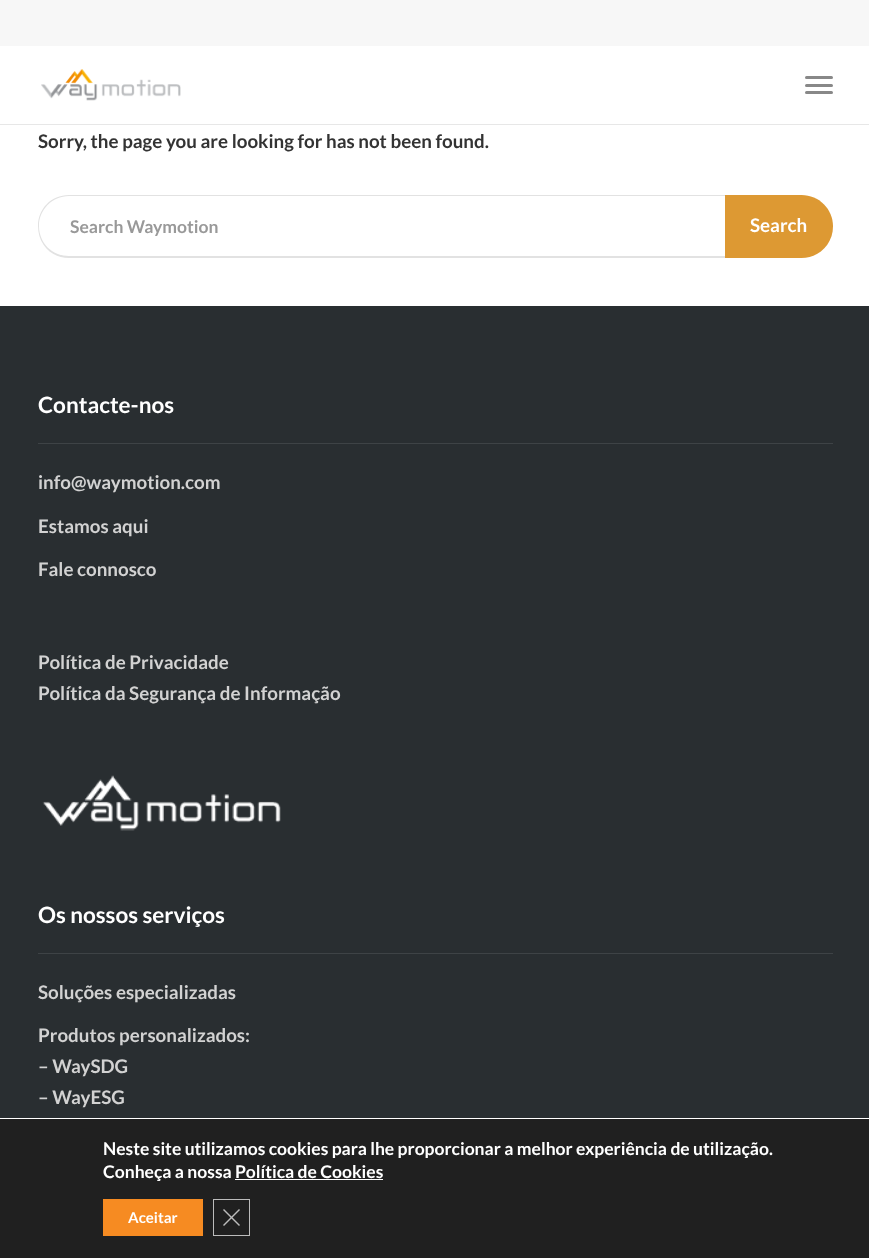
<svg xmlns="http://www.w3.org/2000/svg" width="869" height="1258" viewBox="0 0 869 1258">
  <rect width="100%" height="100%" fill="#ffffff"/>
  <rect x="0" y="124" width="869" height="1" fill="#e7e7e7"/>
  <rect x="0" y="0" width="869" height="46" fill="#f7f7f7"/>
  <image x="41" y="69" width="140" height="32" href="img1.png"/>
  <rect x="805" y="76" width="28" height="3" rx="1.5" fill="#888888"/>
  <rect x="805" y="84" width="28" height="3" rx="1.5" fill="#888888"/>
  <rect x="805" y="91" width="28" height="3" rx="1.5" fill="#888888"/>
  <text x="38" y="148" font-family="Lato" font-size="18.75" font-weight="bold" fill="#333333">Sorry, the page you are looking for has not been found.</text>
  <path d="M69 195H725V258H69C51 258 38 244 38 226C38 209 51 195 69 195ZM69 196H725V256H69C52 256 39 243 39 226C39 210 52 196 69 196Z" fill="#e2e2e2" fill-rule="evenodd"/>
  <text x="70" y="233" font-family="Lato" font-size="17.5" font-weight="bold" fill="#999999">Search Waymotion</text>
  <path d="M725 195H801.5C819 195 833 209 833 226.5C833 244 819 258 801.5 258H725Z" fill="#dd9933"/>
  <text x="750" y="232" font-family="Lato" font-size="18.75" font-weight="bold" fill="#ffffff">Search</text>
  <rect x="0" y="306" width="869" height="812" fill="#292e31"/>
  <rect x="38" y="443" width="795" height="1" fill="#3e4346"/>
  <text x="38" y="413" font-family="Lato" font-size="22.5" font-weight="bold" fill="#ffffff">Contacte-nos</text>
  <text x="38" y="489" font-family="Lato" font-size="18.75" font-weight="bold" fill="#d2d2d2">info@waymotion.com</text>
  <text x="38" y="533" font-family="Lato" font-size="18.75" font-weight="bold" fill="#d2d2d2">Estamos aqui</text>
  <text x="38" y="576" font-family="Lato" font-size="18.75" font-weight="bold" fill="#d2d2d2">Fale connosco</text>
  <text x="38" y="669" font-family="Lato" font-size="18.75" font-weight="bold" fill="#d2d2d2">Política de Privacidade</text>
  <text x="38" y="700" font-family="Lato" font-size="18.75" font-weight="bold" fill="#d2d2d2">Política da Segurança de Informação</text>
  <image x="42" y="775" width="239" height="56" href="img2.png"/>
  <rect x="38" y="953" width="795" height="1" fill="#3e4346"/>
  <text x="38" y="923" font-family="Lato" font-size="22.5" font-weight="bold" fill="#ffffff">Os nossos serviços</text>
  <text x="38" y="999" font-family="Lato" font-size="18.75" font-weight="bold" fill="#d2d2d2">Soluções especializadas</text>
  <text x="38" y="1042" font-family="Lato" font-size="18.75" font-weight="bold" fill="#d2d2d2">Produtos personalizados:</text>
  <text x="38" y="1073" font-family="Lato" font-size="18.75" font-weight="bold" fill="#d2d2d2">– WaySDG</text>
  <text x="38" y="1104" font-family="Lato" font-size="18.75" font-weight="bold" fill="#d2d2d2">– WayESG</text>
  <rect x="0" y="1119" width="869" height="139" fill="#202020"/>
  <text x="103" y="1155" font-family="Lato" font-size="17.5" font-weight="bold" fill="#ffffff">Neste site utilizamos cookies para lhe proporcionar a melhor experiência de utilização.</text>
  <text x="103" y="1178" font-family="Lato" font-size="17.5" font-weight="bold" fill="#ffffff">Conheça a nossa Política de Cookies</text>
  <rect x="235" y="1179" width="148" height="1" fill="#ffffff"/>
  <rect x="103" y="1199" width="100" height="37" fill="#f68b22"/>
  <text x="128" y="1223" font-family="Lato" font-size="15" font-weight="bold" fill="#ffffff">Aceitar</text>
  <rect x="213.5" y="1199.5" width="36" height="36" fill="none" stroke="#bcbcbc"/>
  <path d="M239 1209L240 1210L224 1226L223 1225Z" fill="#bcbcbc"/>
  <path d="M223 1210L224 1209L240 1225L239 1226Z" fill="#bcbcbc"/>
</svg>
